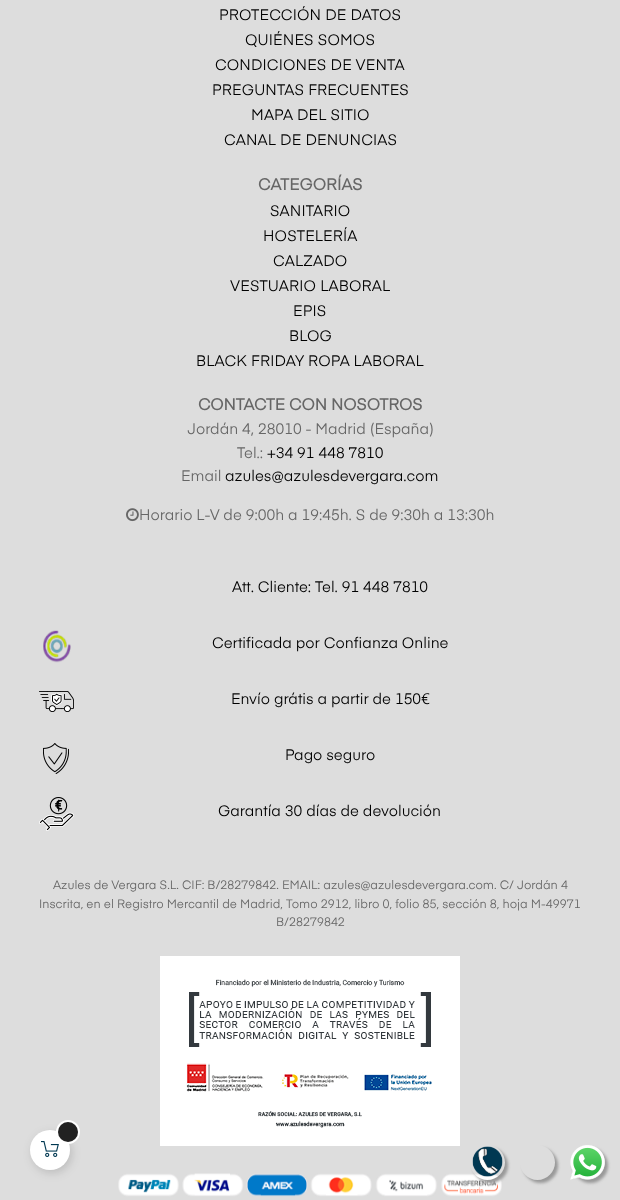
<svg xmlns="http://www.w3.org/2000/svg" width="620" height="1200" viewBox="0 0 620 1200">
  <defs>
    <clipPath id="clip1"><path d="M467 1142H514V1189H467ZM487.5 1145C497 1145 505 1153 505 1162.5C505 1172 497 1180 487.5 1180C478 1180 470 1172 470 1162.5C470 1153 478 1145 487.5 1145Z" clip-rule="evenodd"/></clipPath>
    <filter id="blur1" x="-50%" y="-200%" width="200%" height="500%"><feGaussianBlur stdDeviation="1.5"/></filter>
    <clipPath id="clip2"><path d="M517 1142H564V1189H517ZM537.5 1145C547 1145 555 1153 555 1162.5C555 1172 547 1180 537.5 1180C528 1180 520 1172 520 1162.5C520 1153 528 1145 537.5 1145Z" clip-rule="evenodd"/></clipPath>
    <filter id="blur2" x="-50%" y="-200%" width="200%" height="500%"><feGaussianBlur stdDeviation="5"/></filter>
  </defs>
  <rect width="100%" height="100%" fill="#dddddd"/>
  <text x="219" y="20" font-family="'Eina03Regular'" font-size="15" letter-spacing="0.15" fill="#000000">PROTECCIÓN DE DATOS</text>
  <text x="245" y="45" font-family="'Eina03Regular'" font-size="15" letter-spacing="0.15" fill="#000000">QUIÉNES SOMOS</text>
  <text x="215" y="70" font-family="'Eina03Regular'" font-size="15" letter-spacing="0.15" fill="#000000">CONDICIONES DE VENTA</text>
  <text x="212" y="95" font-family="'Eina03Regular'" font-size="15" letter-spacing="0.15" fill="#000000">PREGUNTAS FRECUENTES</text>
  <text x="251" y="120" font-family="'Eina03Regular'" font-size="15" letter-spacing="0.15" fill="#000000">MAPA DEL SITIO</text>
  <text x="224" y="145" font-family="'Eina03Regular'" font-size="15" letter-spacing="0.15" fill="#000000">CANAL DE DENUNCIAS</text>
  <text x="258" y="190" font-family="'Eina03Regular'" font-size="16" font-weight="bold" letter-spacing="0.15" fill="#666666">CATEGORÍAS</text>
  <text x="270" y="216" font-family="'Eina03Regular'" font-size="15" letter-spacing="0.15" fill="#000000">SANITARIO</text>
  <text x="263" y="241" font-family="'Eina03Regular'" font-size="15" letter-spacing="0.15" fill="#000000">HOSTELERÍA</text>
  <text x="273" y="266" font-family="'Eina03Regular'" font-size="15" letter-spacing="0.15" fill="#000000">CALZADO</text>
  <text x="230" y="291" font-family="'Eina03Regular'" font-size="15" letter-spacing="0.15" fill="#000000">VESTUARIO LABORAL</text>
  <text x="293" y="316" font-family="'Eina03Regular'" font-size="15" letter-spacing="0.15" fill="#000000">EPIS</text>
  <text x="289" y="341" font-family="'Eina03Regular'" font-size="15" letter-spacing="0.15" fill="#000000">BLOG</text>
  <text x="196" y="366" font-family="'Eina03Regular'" font-size="15" letter-spacing="0.15" fill="#000000">BLACK FRIDAY ROPA LABORAL</text>
  <text x="198" y="410" font-family="'Eina03Regular'" font-size="16" font-weight="bold" fill="#666666">CONTACTE CON NOSOTROS</text>
  <text x="187" y="434" font-family="'Eina03Regular'" font-size="15" fill="#666666">Jordán 4, 28010 - Madrid (España)</text>
  <text x="237" y="458" font-family="'Eina03Regular'" font-size="15" fill="#666666">Tel.:</text>
  <text x="267" y="458" font-family="'Eina03Regular'" font-size="15" fill="#000000">+34 91 448 7810</text>
  <text x="181" y="481" font-family="'Eina03Regular'" font-size="15" fill="#666666">Email</text>
  <text x="225" y="481" font-family="'Eina03Regular'" font-size="15" fill="#000000">azules@azulesdevergara.com</text>
  <image x="126" y="508" width="13" height="14" href="img1.png"/>
  <text x="139" y="520" font-family="'Eina03Regular'" font-size="15" fill="#666666">Horario L-V de 9:00h a 19:45h. S de 9:30h a 13:30h</text>
  <text x="232" y="592" font-family="'Eina03Regular'" font-size="15" fill="#000000">Att. Cliente: Tel. 91 448 7810</text>
  <image x="43" y="630" width="28" height="33" href="img2.png"/>
  <text x="212" y="648" font-family="'Eina03Regular'" font-size="15" fill="#000000">Certificada por Confianza Online</text>
  <image x="39" y="691" width="35" height="21" href="img3.png"/>
  <text x="231" y="704" font-family="'Eina03Regular'" font-size="15" fill="#000000">Envío grátis a partir de 150€</text>
  <image x="43" y="743" width="26" height="31" href="img4.png"/>
  <text x="285" y="760" font-family="'Eina03Regular'" font-size="15" fill="#000000">Pago seguro</text>
  <image x="39" y="797" width="35" height="34" href="img5.png"/>
  <text x="218" y="816" font-family="'Eina03Regular'" font-size="15" fill="#000000">Garantía 30 días de devolución</text>
  <text x="53" y="889" font-family="'Eina03Regular'" font-size="12" fill="#666666">Azules de Vergara S.L. CIF: B/28279842. EMAIL: azules@azulesdevergara.com. C/ Jordán 4</text>
  <text x="39" y="908" font-family="'Eina03Regular'" font-size="12" fill="#666666">Inscrita, en el Registro Mercantil de Madrid, Tomo 2912, libro 0, folio 85, sección 8, hoja M-49971</text>
  <text x="276" y="926" font-family="'Eina03Regular'" font-size="12" fill="#666666">B/28279842</text>
  <image x="160" y="956" width="300" height="190" href="img6.png"/>
  <image x="118" y="1173" width="384" height="24" href="img7.png"/>
  <g clip-path="url(#clip1)">
    <rect x="473" y="1148" width="35" height="35" rx="17.5" fill="#999999" filter="url(#blur1)"/>
  </g>
  <image x="472" y="1146" width="31" height="31" href="img8.png"/>
  <g clip-path="url(#clip2)">
    <rect x="523" y="1148" width="35" height="35" rx="17.5" fill="#999999" filter="url(#blur1)"/>
  </g>
  <rect x="573" y="1148" width="35" height="35" rx="17.5" fill="#999999" filter="url(#blur1)"/>
  <image x="570" y="1145" width="35" height="35" href="img9.png"/>
  <rect x="32" y="1133" width="40" height="40" rx="20" fill="#000000" fill-opacity="0.15" filter="url(#blur2)"/>
  <circle cx="50" cy="1150" r="20" fill="#ffffff"/>
  <image x="41" y="1141" width="18" height="16" href="img10.png"/>
  <circle cx="68" cy="1132" r="11" fill="none" stroke="#ffffff" stroke-width="2"/>
  <circle cx="68" cy="1132" r="10" fill="#222222"/>
</svg>
